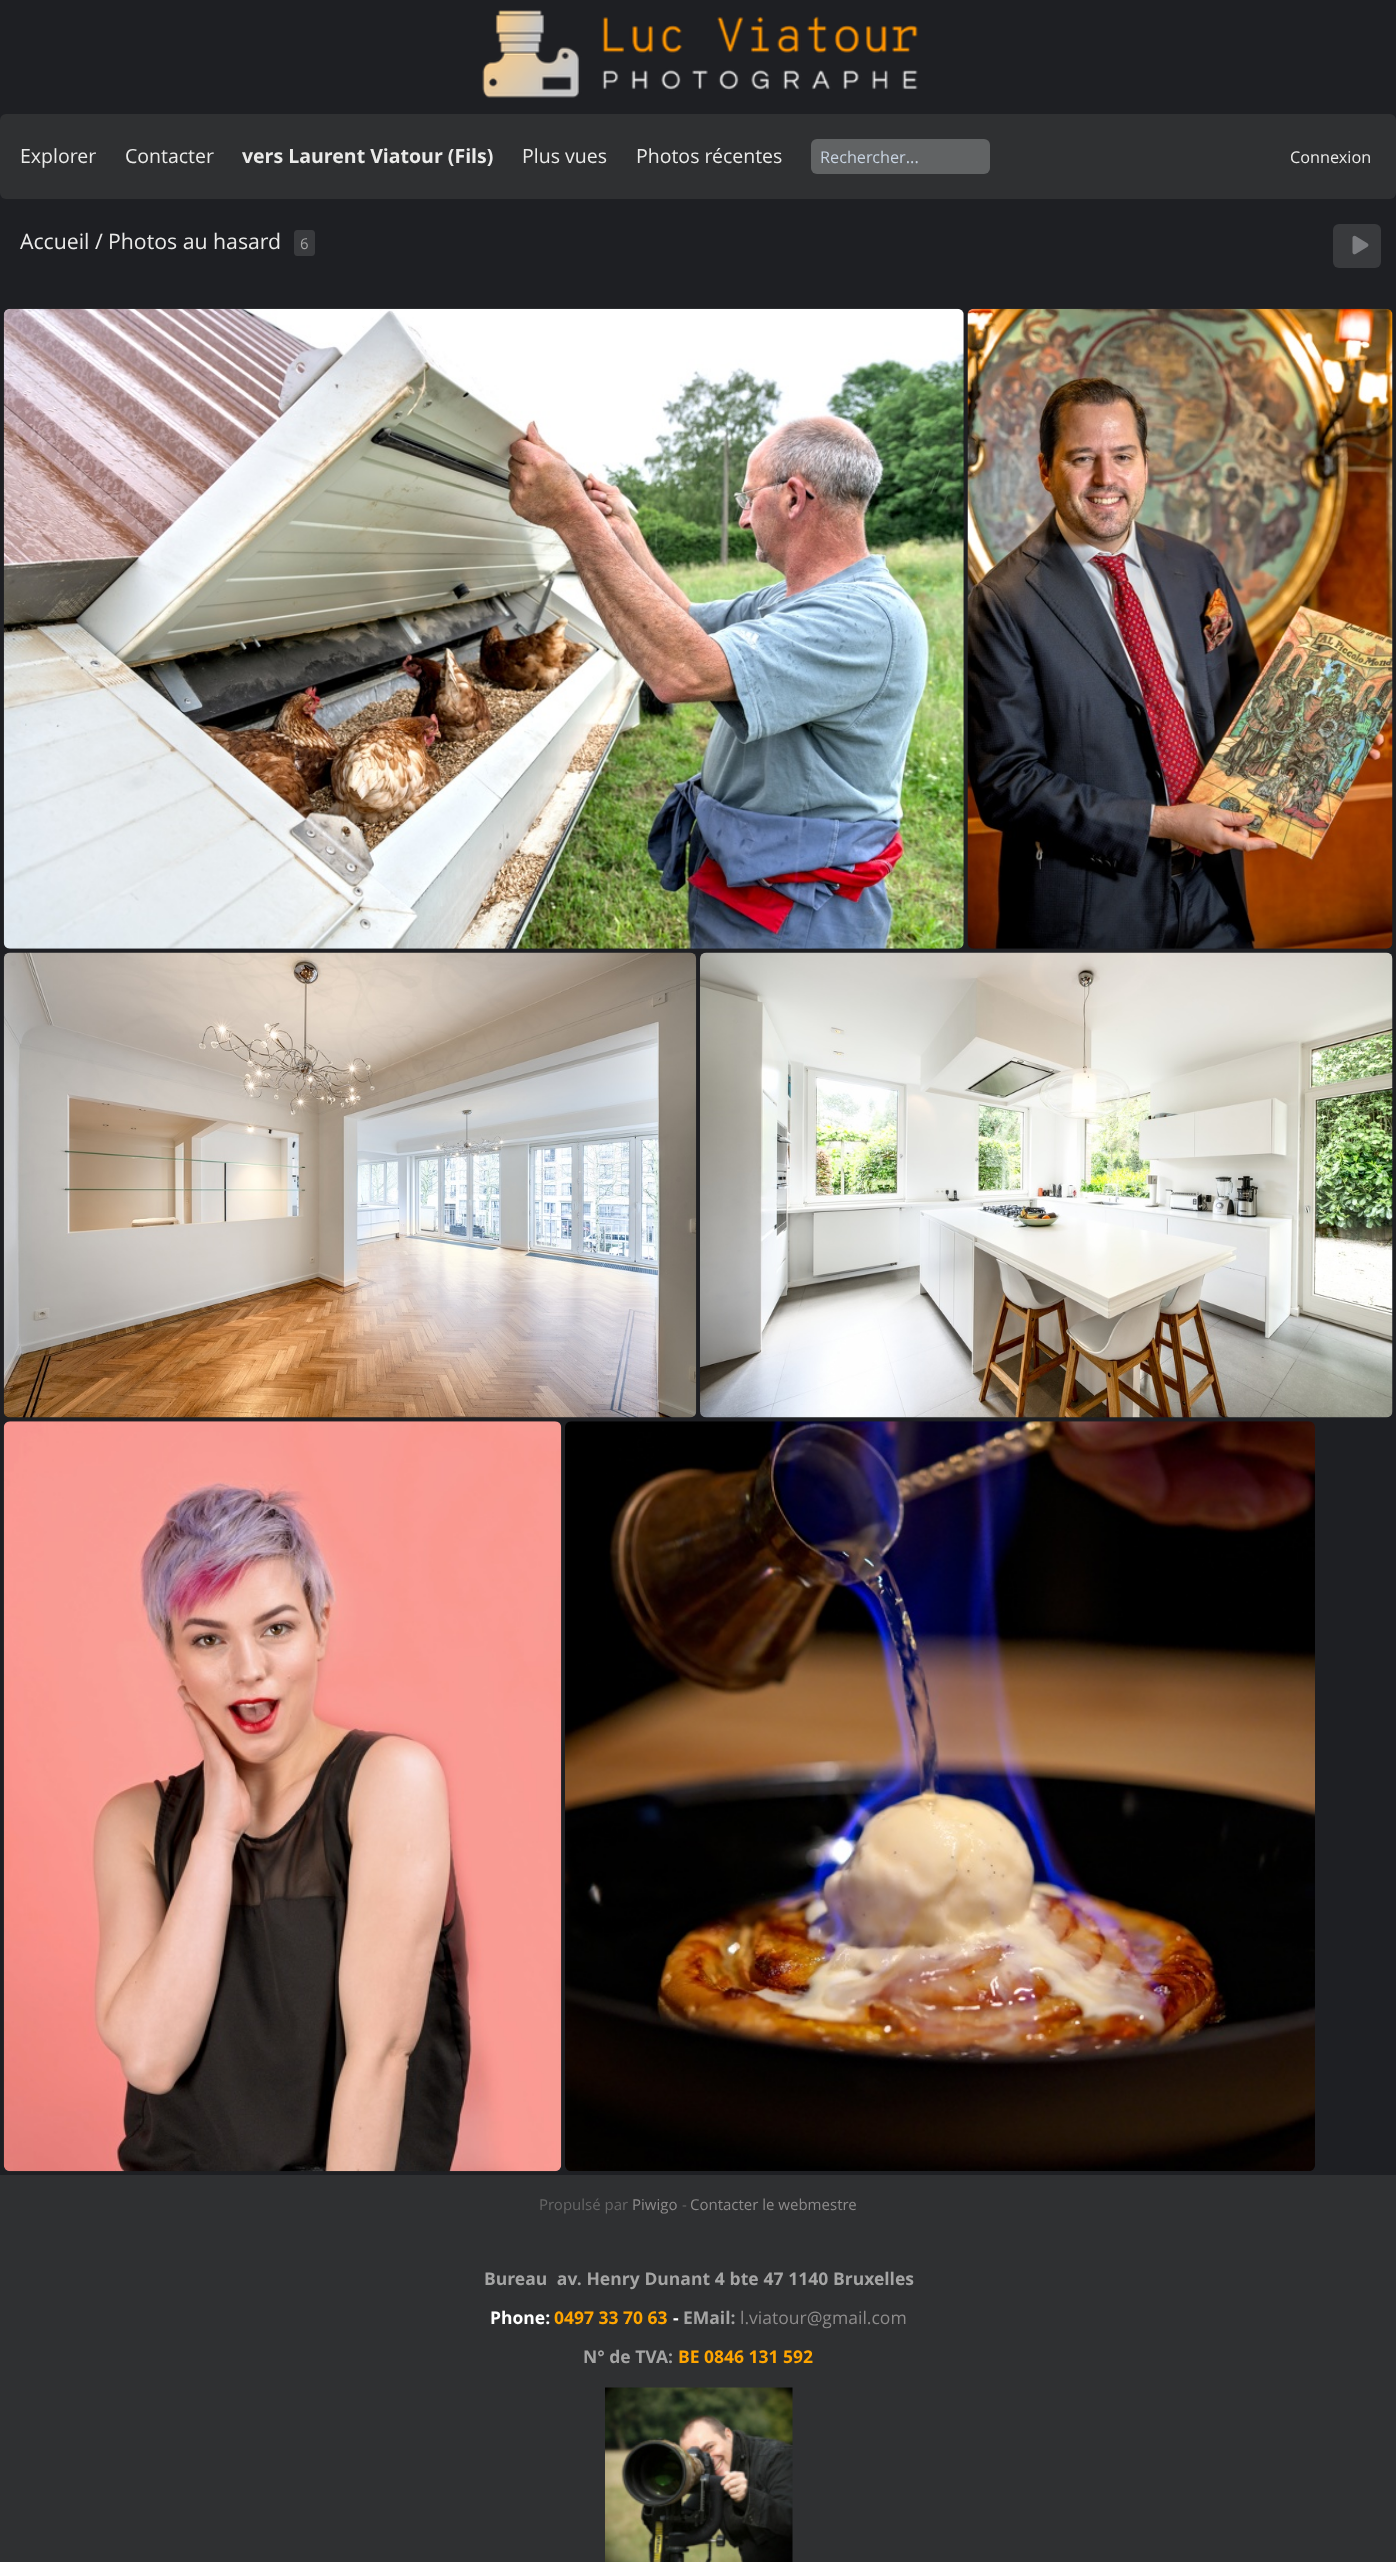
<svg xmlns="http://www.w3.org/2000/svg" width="1396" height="2562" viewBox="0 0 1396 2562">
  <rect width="100%" height="100%" fill="#1e1f23"/>
  <image x="482" y="10" width="436" height="88" href="img1.png"/>
  <rect x="0" y="114" width="1396" height="85" rx="6" fill="#2f3032"/>
  <text x="20" y="163" font-family="Open Sans" font-size="19.5" fill="#eaeae9">Explorer</text>
  <text x="125" y="163" font-family="Open Sans" font-size="19.5" fill="#eaeae9">Contacter</text>
  <text x="242" y="163" font-family="Open Sans" font-size="19.5" font-weight="bold" fill="#eaeae9">vers Laurent Viatour (Fils)</text>
  <text x="522" y="163" font-family="Open Sans" font-size="19.5" fill="#eaeae9">Plus vues</text>
  <text x="636" y="163" font-family="Open Sans" font-size="19.5" fill="#eaeae9">Photos récentes</text>
  <rect x="811" y="139" width="179" height="35" rx="6" fill="#616364"/>
  <text x="820" y="163" font-family="Open Sans" font-size="16.25" fill="#c7d3e1">Rechercher...</text>
  <text x="1290" y="163" font-family="Open Sans" font-size="16.25" fill="#eaeae9">Connexion</text>
  <text x="20" y="249" font-family="Open Sans" font-size="21.25" fill="#eaeae9">Accueil /</text>
  <text x="108" y="249" font-family="Open Sans" font-size="21.25" fill="#eaeae9">Photos au hasard</text>
  <rect x="300" y="230" width="9" height="26" fill="#393a3d"/>
  <text x="300" y="249" font-family="Open Sans" font-size="15" fill="#a4a4a4">6</text>
  <path d="M297 230H300V256H297C295.5 256 294 254.5 294 253V233C294 231.5 295.5 230 297 230Z" fill="#393a3d"/>
  <path d="M309 230H312C313.5 230 315 231.5 315 233V253C315 254.5 313.5 256 312 256H309Z" fill="#393a3d"/>
  <rect x="1333" y="224" width="48" height="44" rx="6" fill="#393a3d"/>
  <image x="1352" y="235" width="17" height="20" href="img2.png"/>
  <image x="3" y="308" width="961" height="641" href="img3.png"/>
  <image x="967" y="308" width="426" height="641" href="img4.png"/>
  <image x="3" y="952" width="694" height="466" href="img5.png"/>
  <image x="700" y="952" width="693" height="466" href="img6.png"/>
  <image x="3" y="1421" width="559" height="751" href="img7.png"/>
  <image x="565" y="1421" width="750" height="750" href="img8.png"/>
  <rect x="0" y="2175" width="1396" height="387" fill="#2f3032"/>
  <text x="539" y="2210" font-family="Open Sans" font-size="15" fill="#666666">Propulsé par</text>
  <text x="632" y="2210" font-family="Open Sans" font-size="15" fill="#8d8b8b">Piwigo</text>
  <text x="682" y="2210" font-family="Open Sans" font-size="15" fill="#666666">-</text>
  <text x="690" y="2210" font-family="Open Sans" font-size="15" fill="#8d8b8b">Contacter le webmestre</text>
  <text x="484" y="2285" word-spacing="0.25" font-family="Open Sans" font-size="17.5" font-weight="bold" fill="#a4a4a4" xml:space="preserve">Bureau  av. Henry Dunant 4 bte 47 1140 Bruxelles</text>
  <text x="490" y="2324" font-family="Open Sans" font-size="17.5" font-weight="bold" fill="#ffffff">Phone:</text>
  <text x="554" y="2324" font-family="Open Sans" font-size="17.5" font-weight="bold" fill="#ffa500">0497 33 70 63</text>
  <text x="673" y="2324" font-family="Open Sans" font-size="17.5" font-weight="bold" fill="#ffffff">-</text>
  <text x="683" y="2324" font-family="Open Sans" font-size="17.5" font-weight="bold" fill="#a4a4a4">EMail:</text>
  <text x="740" y="2324" font-family="Open Sans" font-size="17.5" fill="#8d8b8b">l.viatour@gmail.com</text>
  <text x="583" y="2363" font-family="Open Sans" font-size="17.5" font-weight="bold" fill="#a4a4a4">N° de TVA:</text>
  <text x="678" y="2363" font-family="Open Sans" font-size="17.5" font-weight="bold" fill="#ffa500">BE 0846 131 592</text>
  <image x="605" y="2387" width="188" height="175" href="img9.png"/>
</svg>
